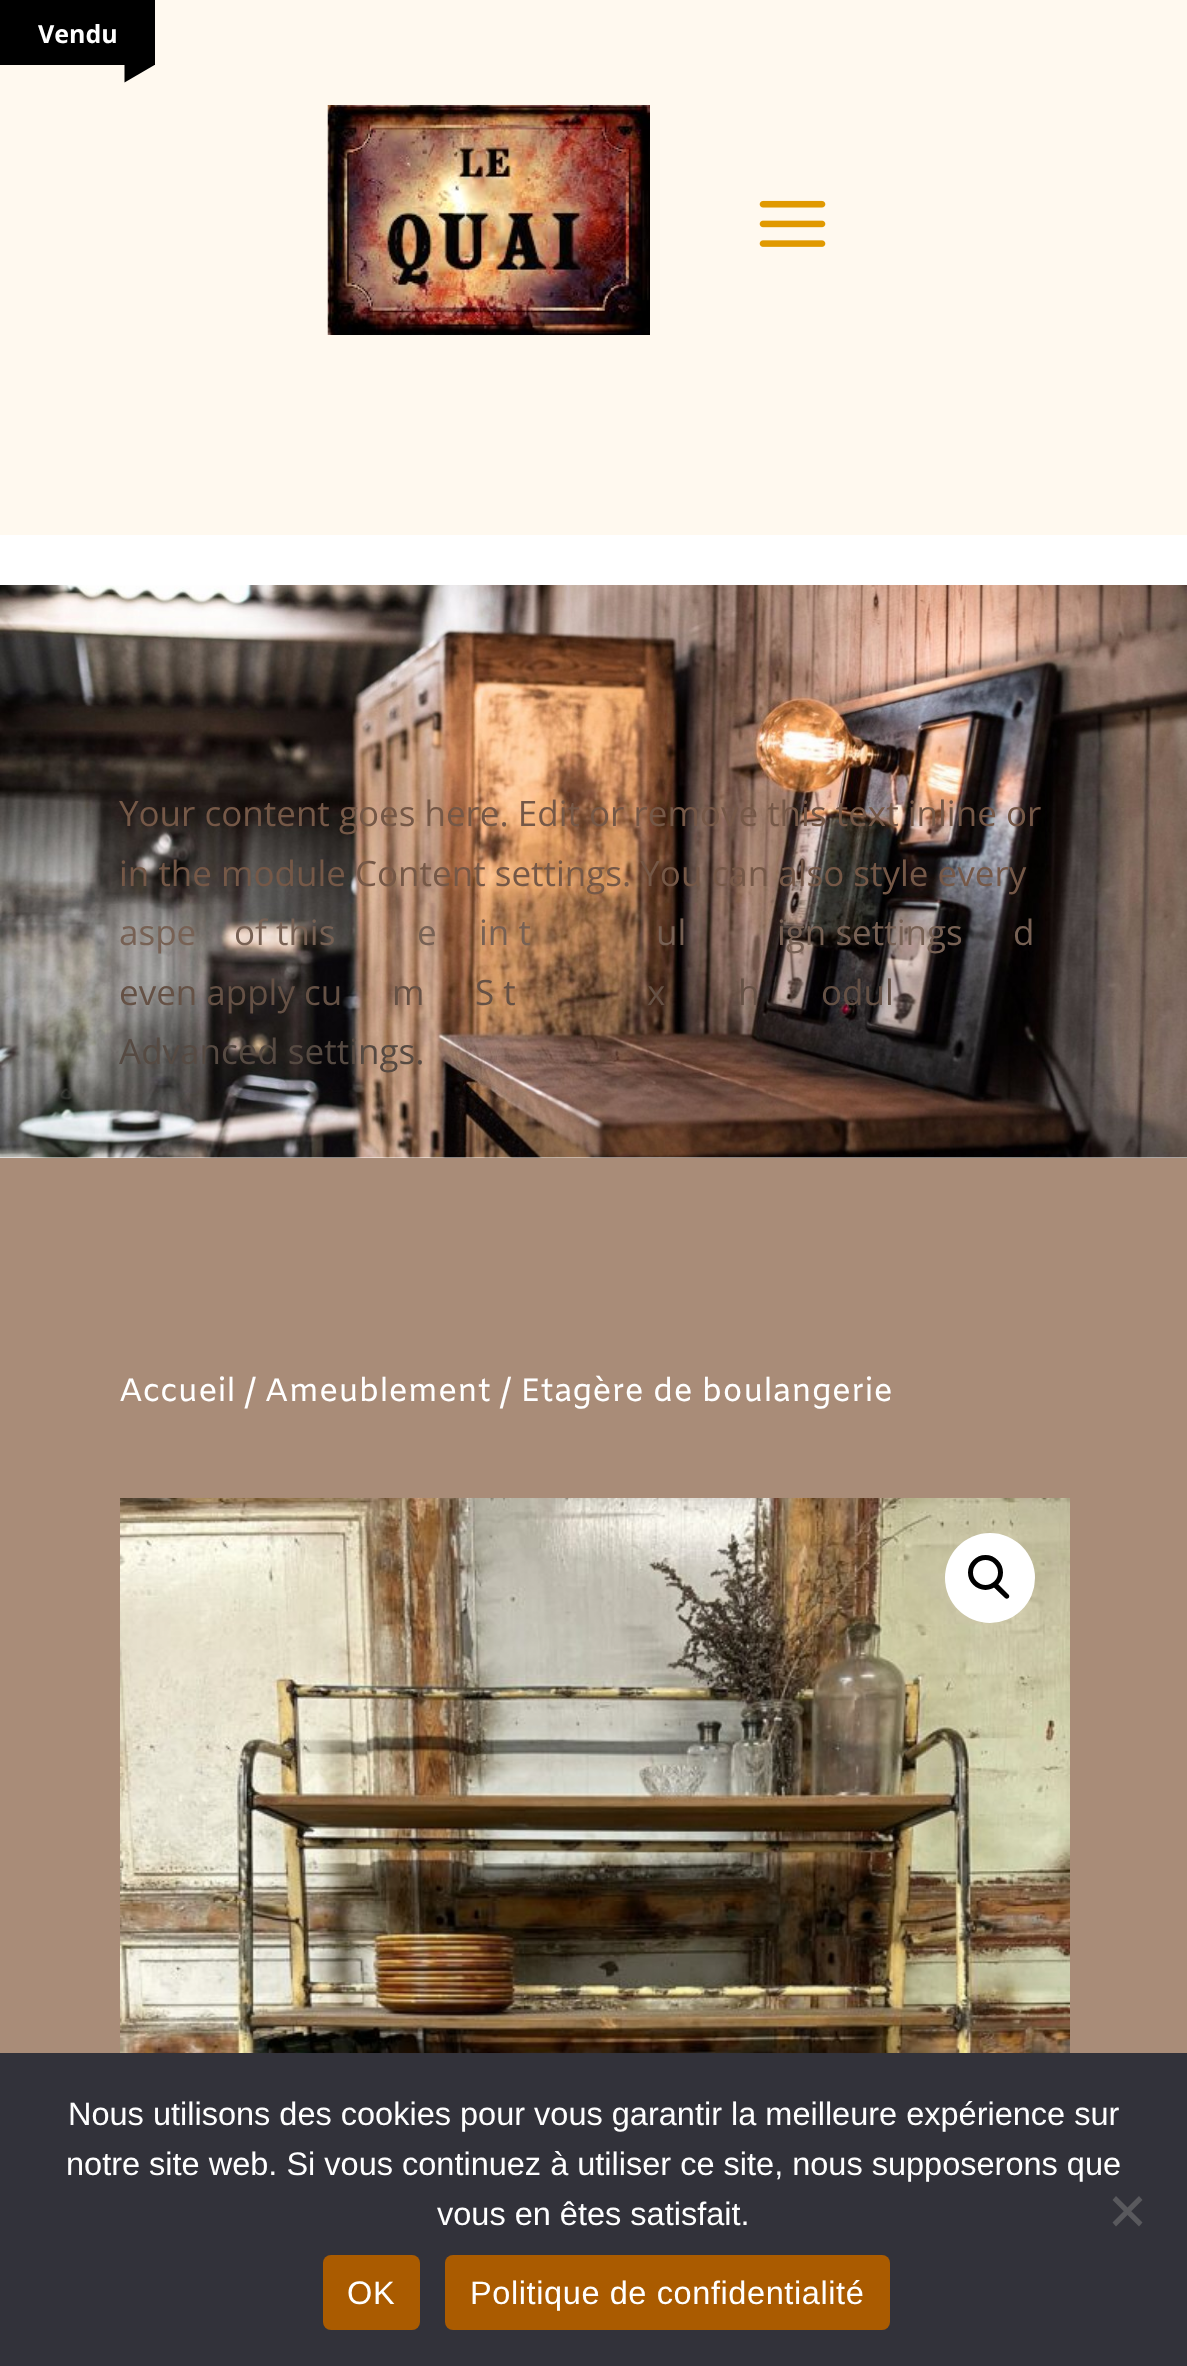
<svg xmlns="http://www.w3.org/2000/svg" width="1187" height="2366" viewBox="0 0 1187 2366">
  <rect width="100%" height="100%" fill="#ffffff"/>
  <rect x="0" y="0" width="1187" height="535" fill="#fff9ef"/>
  <image x="327" y="105" width="323" height="230" href="img1.png"/>
  <image x="759" y="200" width="67" height="47" href="img2.png"/>
  <rect x="0" y="0" width="155" height="65" fill="#000000"/>
  <text x="38" y="43" font-family="Open Sans" font-size="25" font-weight="bold" fill="#ffffff">Vendu</text>
  <path d="M124.5 65V82.5L154.5 65Z" fill="#000000"/>
  <image x="0" y="585" width="1187" height="573" href="img3.png"/>
  <text x="119" y="826" font-family="Open Sans" font-size="35" fill="#755847">Your content goes here. Edit or remove this text inline or</text>
  <text x="119" y="886" font-family="Open Sans" font-size="35" fill="#755847">in the module Content settings. You can also style every</text>
  <text x="119" y="945" font-family="Open Sans" font-size="35" fill="#776154">aspe</text>
  <text x="234" y="945" font-family="Open Sans" font-size="35" fill="#776154">of this</text>
  <text x="417" y="945" font-family="Open Sans" font-size="35" fill="#776154">e</text>
  <text x="479" y="945" font-family="Open Sans" font-size="35" fill="#776154">in t</text>
  <text x="656" y="945" font-family="Open Sans" font-size="35" fill="#776154">ul</text>
  <text x="777" y="945" font-family="Open Sans" font-size="35" fill="#776154">ign settings</text>
  <text x="1013" y="945" font-family="Open Sans" font-size="35" fill="#776154">d</text>
  <text x="119" y="1005" font-family="Open Sans" font-size="35" fill="#655145">even apply cu</text>
  <text x="392" y="1005" font-family="Open Sans" font-size="35" fill="#655145">m</text>
  <text x="475" y="1005" font-family="Open Sans" font-size="35" fill="#655145">S t</text>
  <text x="647" y="1005" font-family="Open Sans" font-size="35" fill="#655145">x</text>
  <text x="738" y="1005" font-family="Open Sans" font-size="35" fill="#655145">h</text>
  <text x="821" y="1005" font-family="Open Sans" font-size="35" fill="#655145">odul</text>
  <text x="119" y="1064" font-family="Open Sans" font-size="35" fill="#564a42">Advanced settings.</text>
  <rect x="0" y="1158" width="1187" height="895" fill="#a98c78"/>
  <text x="119" y="1401" font-family="Amiko" font-size="32.2" fill="#ffffff">Accueil / Ameublement / Etagère de boulangerie</text>
  <image x="120" y="1498" width="950" height="555" href="img4.png"/>
  <circle cx="990" cy="1578" r="45" fill="#ffffff"/>
  <circle cx="985.5" cy="1572.5" r="15" fill="none" stroke="#000000" stroke-width="5"/>
  <path d="M994 1583.5C995 1583 996.5 1583 997.5 1583.5L1008.5 1594.5C1009.5 1595.5 1009.5 1597 1008.5 1598C1007.5 1599 1006 1599 1005 1598L994 1587.5C993 1586.5 993 1584.5 994 1583.5Z" fill="#000000"/>
  <rect x="0" y="2053" width="1187" height="313" fill="#32323a"/>
  <text x="68" y="2125" font-family="Liberation Sans" font-size="32.5" fill="#ffffff">Nous utilisons des cookies pour vous garantir la meilleure expérience sur</text>
  <text x="66" y="2175" font-family="Liberation Sans" font-size="32.5" fill="#ffffff">notre site web. Si vous continuez à utiliser ce site, nous supposerons que</text>
  <text x="437" y="2225" font-family="Liberation Sans" font-size="32.5" fill="#ffffff">vous en êtes satisfait.</text>
  <path d="M1139 2196L1142.5 2200L1116 2226.5L1112.5 2222.5Z" fill="#59595d"/>
  <path d="M1112.5 2200L1116 2196L1142.5 2222.5L1139 2226.5Z" fill="#59595d"/>
  <rect x="323" y="2255" width="97" height="75" rx="8" fill="#aa5b00"/>
  <text x="347" y="2304" font-family="Liberation Sans" font-size="32.5" letter-spacing="0.6" fill="#ffffff">OK</text>
  <rect x="445" y="2255" width="445" height="75" rx="8" fill="#aa5b00"/>
  <text x="470" y="2304" font-family="Liberation Sans" font-size="32.5" letter-spacing="0.6" fill="#ffffff">Politique de confidentialité</text>
</svg>
